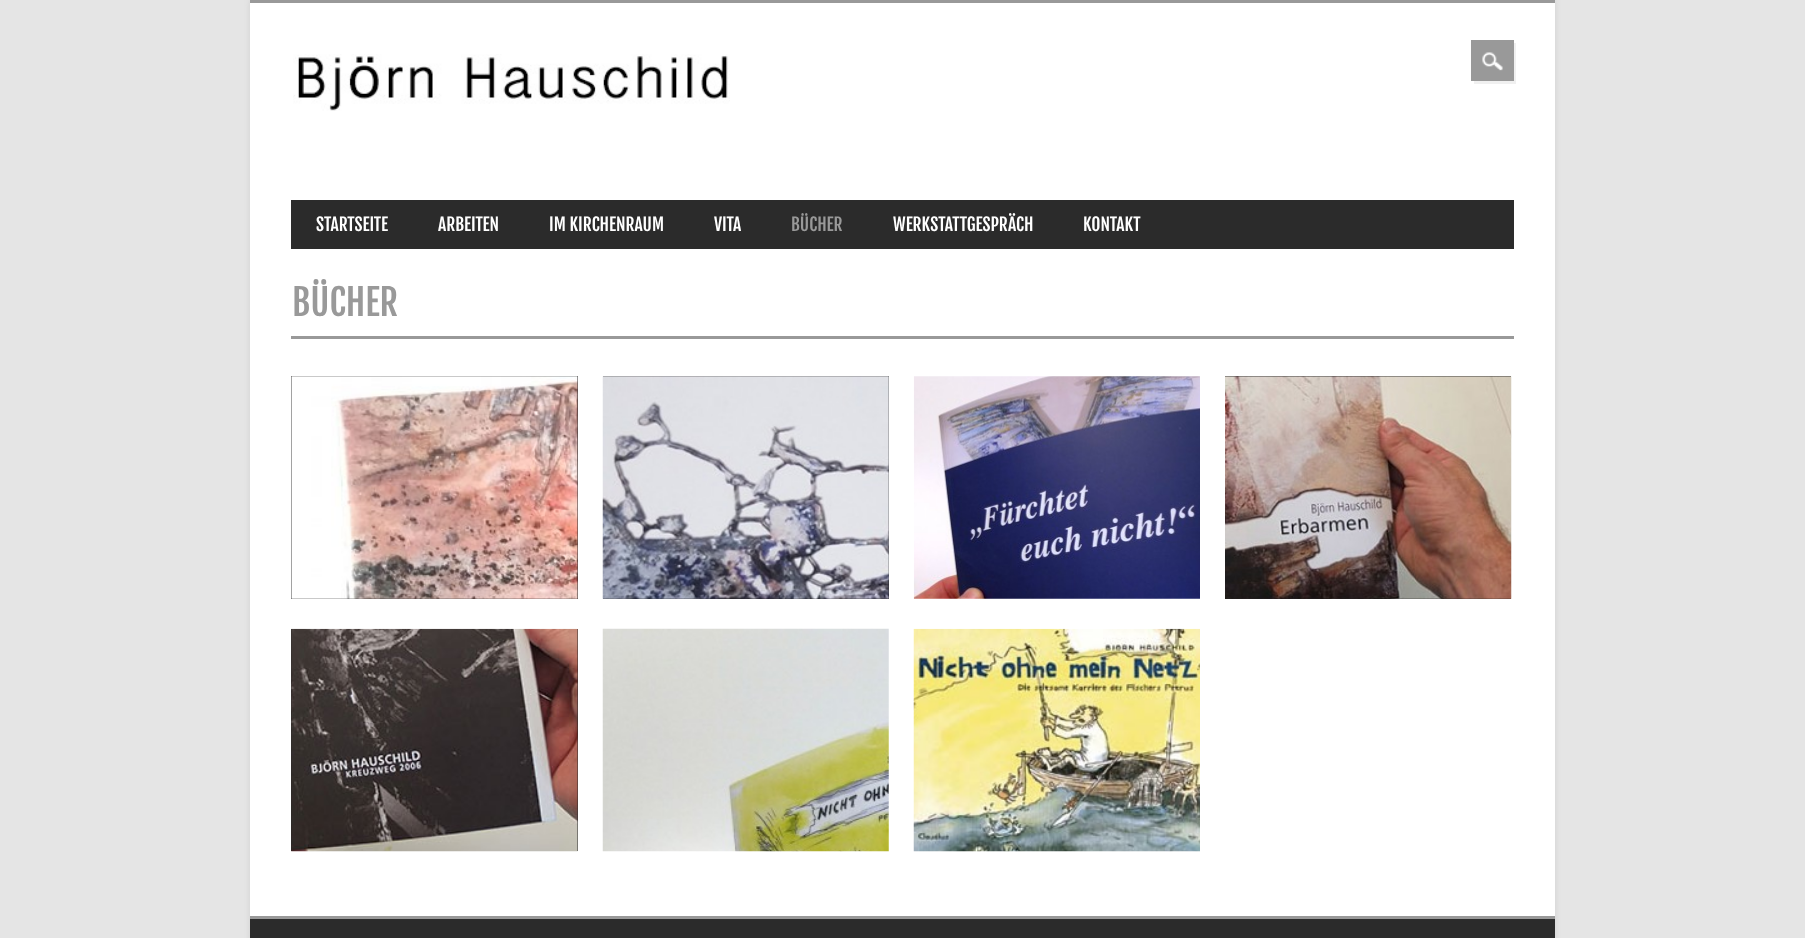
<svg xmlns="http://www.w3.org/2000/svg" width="1805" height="938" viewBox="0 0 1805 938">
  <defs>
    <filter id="blur1" x="-50%" y="-200%" width="200%" height="500%"><feGaussianBlur stdDeviation="3"/></filter>
  </defs>
  <rect width="100%" height="100%" fill="#e5e5e5"/>
  <rect x="250" y="0" width="1305" height="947" fill="#d0d0d0" filter="url(#blur1)"/>
  <rect x="250" y="3" width="1305" height="913" fill="#ffffff"/>
  <rect x="250" y="0" width="1305" height="3" fill="#999999"/>
  <image x="293" y="54" width="437" height="57" href="img1.png"/>
  <path d="M1474 81V84H1516V43H1514V81Z" fill="#f0f0f0"/>
  <rect x="1471" y="40" width="43" height="41" fill="#999999"/>
  <image x="1482" y="52" width="21" height="19" href="img2.png"/>
  <rect x="291" y="200" width="1223" height="49" fill="#2b2b2b"/>
  <text x="316" y="231" font-family="Fjalla One" font-size="17.5" fill="#ffffff">STARTSEITE</text>
  <text x="438" y="231" font-family="Fjalla One" font-size="17.5" fill="#ffffff">ARBEITEN</text>
  <text x="549" y="231" font-family="Fjalla One" font-size="17.5" fill="#ffffff">IM KIRCHENRAUM</text>
  <text x="714" y="231" font-family="Fjalla One" font-size="17.5" fill="#ffffff">VITA</text>
  <text x="791" y="231" font-family="Fjalla One" font-size="17.5" fill="#999999">BÜCHER</text>
  <text x="893" y="231" font-family="Fjalla One" font-size="17.5" fill="#ffffff">WERKSTATTGESPRÄCH</text>
  <text x="1083" y="231" font-family="Fjalla One" font-size="17.5" fill="#ffffff">KONTAKT</text>
  <text x="292" y="316" font-family="Fjalla One" font-size="36" fill="#999999">BÜCHER</text>
  <rect x="291" y="336" width="1223" height="3" fill="#999999"/>
  <rect x="291" y="376" width="287" height="223" fill="#2b2b2b"/>
  <image x="291" y="376" width="287" height="223" href="img3.png"/>
  <rect x="603" y="376" width="286" height="223" fill="#2b2b2b"/>
  <image x="602" y="376" width="287" height="223" href="img4.png"/>
  <image x="913" y="376" width="287" height="223" href="img5.png"/>
  <rect x="1225" y="376" width="286" height="223" fill="#2b2b2b"/>
  <image x="1225" y="376" width="287" height="223" href="img6.png"/>
  <rect x="291" y="629" width="287" height="222" fill="#2b2b2b"/>
  <image x="291" y="628" width="287" height="224" href="img7.png"/>
  <image x="602" y="628" width="287" height="224" href="img8.png"/>
  <image x="913" y="628" width="287" height="224" href="img9.png"/>
  <rect x="250" y="919" width="1305" height="19" fill="#2b2b2b"/>
  <rect x="250" y="916" width="1305" height="3" fill="#999999"/>
</svg>
